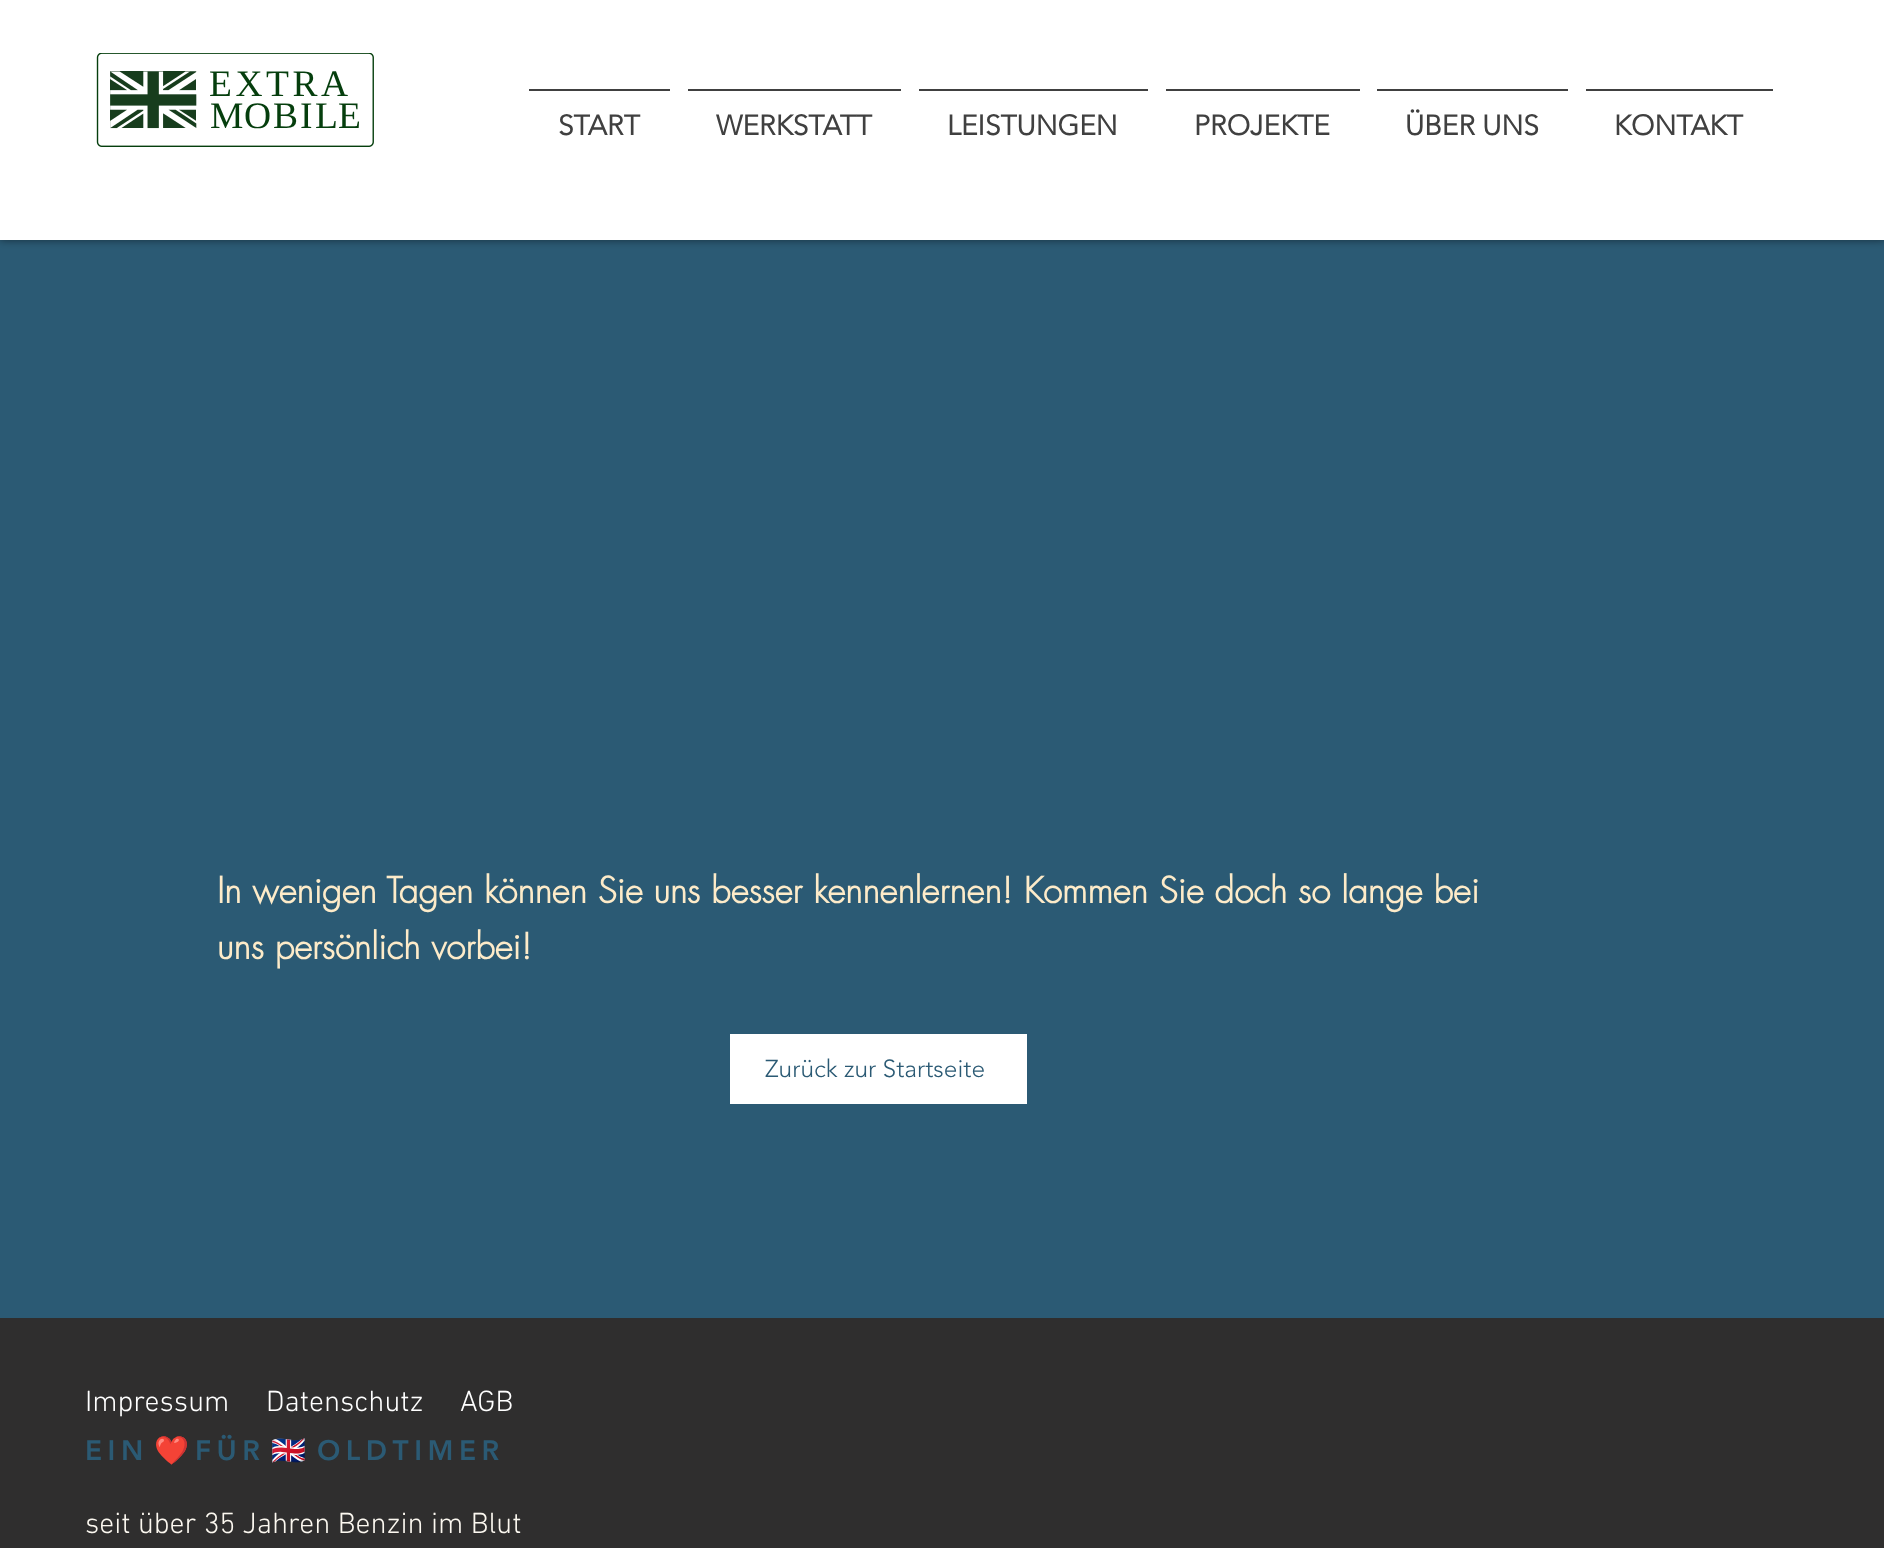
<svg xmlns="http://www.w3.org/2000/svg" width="1884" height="1548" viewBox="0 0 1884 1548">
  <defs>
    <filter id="blur1" x="-50%" y="-200%" width="200%" height="500%"><feGaussianBlur stdDeviation="4.5"/></filter>
  </defs>
  <rect width="100%" height="100%" fill="#2b5a74"/>
  <rect x="0" y="0" width="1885" height="240" fill="#000000" fill-opacity="0.5" filter="url(#blur1)"/>
  <rect x="0" y="0" width="1884" height="240" fill="#ffffff"/>
  <image x="96" y="53" width="278" height="94" href="img1.png"/>
  <text x="209" y="96" font-family="Liberation Serif" font-size="37.5" letter-spacing="3.5" fill="#053e0d">EXTRA</text>
  <text x="210" y="128" font-family="Liberation Serif" font-size="37.5" fill="#053e0d">M</text>
  <text x="244" y="128" font-family="Liberation Serif" font-size="37.5" fill="#053e0d">O</text>
  <text x="273" y="128" font-family="Liberation Serif" font-size="37.5" fill="#053e0d">B</text>
  <text x="300" y="128" font-family="Liberation Serif" font-size="37.5" fill="#053e0d">I</text>
  <text x="315" y="128" font-family="Liberation Serif" font-size="37.5" fill="#053e0d">LE</text>
  <rect x="529" y="89" width="141" height="2" fill="#404040"/>
  <text x="558" y="135" font-family="'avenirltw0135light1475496'" font-size="28" font-weight="bold" fill="#404040">START</text>
  <rect x="688" y="89" width="213" height="2" fill="#404040"/>
  <text x="716" y="135" font-family="'avenirltw0135light1475496'" font-size="28" font-weight="bold" fill="#404040">WERKSTATT</text>
  <rect x="919" y="89" width="229" height="2" fill="#404040"/>
  <text x="947" y="135" font-family="'avenirltw0135light1475496'" font-size="28" font-weight="bold" fill="#404040">LEISTUNGEN</text>
  <rect x="1166" y="89" width="194" height="2" fill="#404040"/>
  <text x="1194" y="135" font-family="'avenirltw0135light1475496'" font-size="28" font-weight="bold" fill="#404040">PROJEKTE</text>
  <rect x="1377" y="89" width="191" height="2" fill="#404040"/>
  <text x="1405" y="135" font-family="'avenirltw0135light1475496'" font-size="28" font-weight="bold" fill="#404040">ÜBER UNS</text>
  <rect x="1586" y="89" width="187" height="2" fill="#404040"/>
  <text x="1614" y="135" font-family="'avenirltw0135light1475496'" font-size="28" font-weight="bold" fill="#404040">KONTAKT</text>
  <text x="217" y="903" font-family="futura" font-size="35" font-weight="bold" fill="#fdebc9">In wenigen Tagen können Sie uns besser kennenlernen! Kommen Sie doch so lange bei</text>
  <text x="217" y="959" font-family="futura" font-size="35" font-weight="bold" fill="#fdebc9">uns persönlich vorbei!</text>
  <rect x="730" y="1034" width="297" height="70" fill="#ffffff"/>
  <text x="765" y="1077" font-family="'avenirltw0135light1475496'" font-size="24.5" font-weight="300" fill="#2b5a74">Zurück zur Startseite</text>
  <rect x="0" y="1318" width="1884" height="230" fill="#2f2e2e"/>
  <text x="85" y="1411" font-family="'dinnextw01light'" font-size="29.75" font-weight="300" fill="#ffffff">Impressum</text>
  <text x="266" y="1411" font-family="'dinnextw01light'" font-size="29.75" font-weight="300" fill="#ffffff">Datenschutz</text>
  <text x="460" y="1411" font-family="'dinnextw01light'" font-size="29.75" font-weight="300" fill="#ffffff">AGB</text>
  <text x="85" y="1460" font-family="'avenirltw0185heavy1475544'" font-size="28" font-weight="900" letter-spacing="5.5" fill="#2b5a74">EIN</text>
  <text x="154" y="1460" font-family="Noto Color Emoji" font-size="28" fill="#2b5a74">❤️</text>
  <text x="195" y="1460" font-family="'avenirltw0185heavy1475544'" font-size="28" font-weight="900" letter-spacing="5.5" fill="#2b5a74">FÜR</text>
  <text x="271" y="1460" font-family="Noto Color Emoji" font-size="28" letter-spacing="5.5" fill="#2b5a74">🇬🇧</text>
  <text x="317" y="1460" font-family="'avenirltw0185heavy1475544'" font-size="28" font-weight="900" letter-spacing="5.5" fill="#2b5a74">OLDTIMER</text>
  <text x="85" y="1533" font-family="'dinnextw01light'" font-size="29.75" font-weight="300" fill="#fcf8f0">seit über 35 Jahren Benzin im Blut</text>
</svg>
